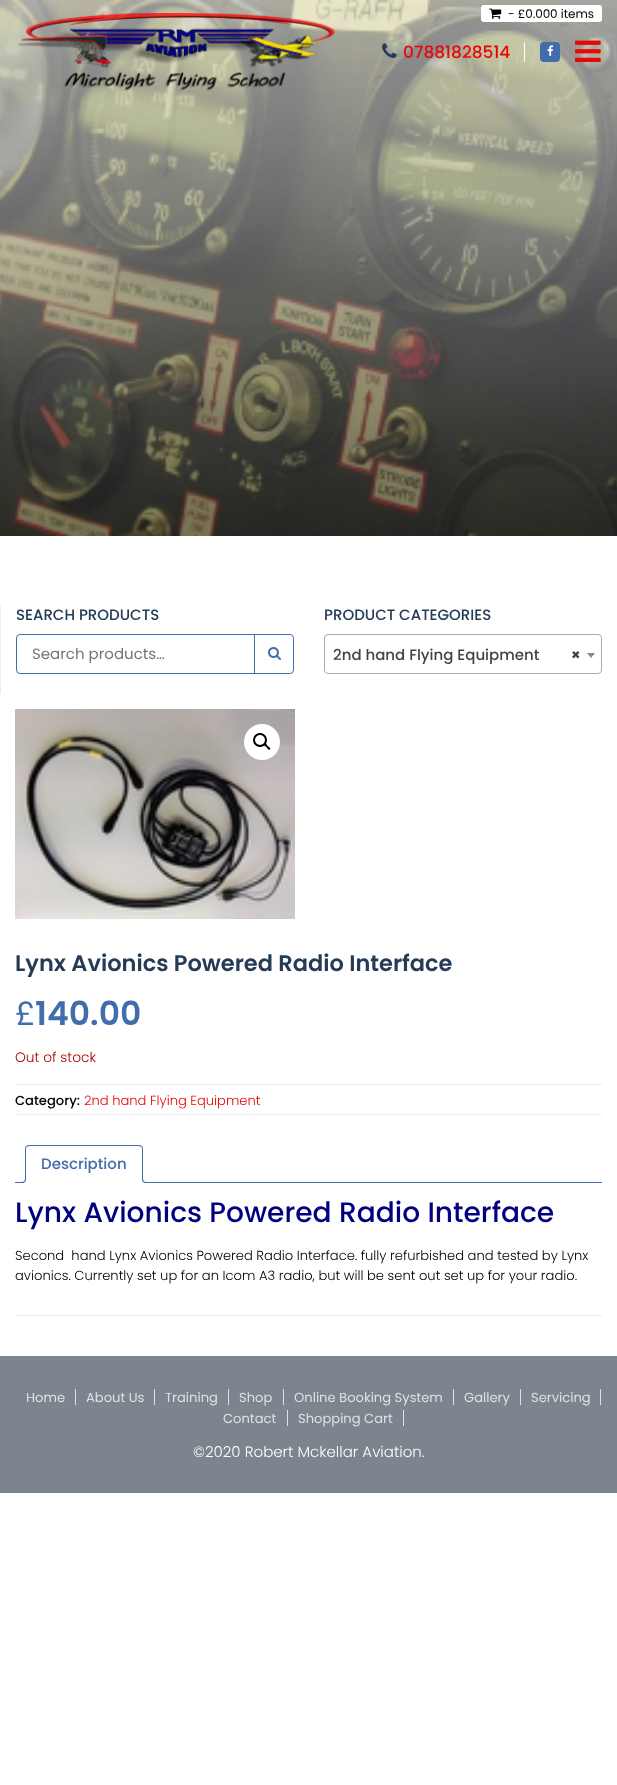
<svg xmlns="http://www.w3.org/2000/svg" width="617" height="1785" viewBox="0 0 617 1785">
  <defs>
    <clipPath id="clip1"><rect x="15" y="1145" width="587" height="38"/></clipPath>
  </defs>
  <rect width="100%" height="100%" fill="#ffffff"/>
  <image x="0" y="0" width="617" height="536" href="img1.png"/>
  <rect x="0" y="1356" width="617" height="137" fill="#7c858d"/>
  <rect x="481" y="5" width="121" height="17" rx="3" fill="#ffffff"/>
  <image x="489" y="8" width="13" height="11" href="img2.png"/>
  <text x="508" y="18" font-family="Poppins" font-size="12" fill="#000000">- £0.00</text>
  <text x="550" y="18" font-family="Poppins" font-size="12" fill="#000000">0 items</text>
  <rect x="75" y="1389" width="1" height="16" fill="#dce1e6"/>
  <text x="26" y="1402" font-family="Poppins" font-size="13.1" fill="#dce1e6">Home</text>
  <rect x="154" y="1389" width="1" height="16" fill="#dce1e6"/>
  <text x="86" y="1402" font-family="Poppins" font-size="13.1" fill="#dce1e6">About Us</text>
  <rect x="228" y="1389" width="1" height="16" fill="#dce1e6"/>
  <text x="165" y="1402" font-family="Poppins" font-size="13.1" fill="#dce1e6">Training</text>
  <rect x="283" y="1389" width="1" height="16" fill="#dce1e6"/>
  <text x="239" y="1402" font-family="Poppins" font-size="13.1" fill="#dce1e6">Shop</text>
  <rect x="453" y="1389" width="1" height="16" fill="#dce1e6"/>
  <text x="294" y="1402" font-family="Poppins" font-size="13.1" fill="#dce1e6">Online Booking System</text>
  <rect x="520" y="1389" width="1" height="16" fill="#dce1e6"/>
  <text x="464" y="1402" font-family="Poppins" font-size="13.1" fill="#dce1e6">Gallery</text>
  <rect x="600" y="1389" width="1" height="16" fill="#dce1e6"/>
  <text x="531" y="1402" font-family="Poppins" font-size="13.1" fill="#dce1e6">Servicing</text>
  <rect x="287" y="1410" width="1" height="16" fill="#dce1e6"/>
  <text x="223" y="1423" font-family="Poppins" font-size="13.1" fill="#dce1e6">Contact</text>
  <rect x="403" y="1410" width="1" height="16" fill="#dce1e6"/>
  <text x="298" y="1423" font-family="Poppins" font-size="13.1" fill="#dce1e6">Shopping Cart</text>
  <text x="193" y="1457" font-family="Poppins" font-size="15" font-weight="300" fill="#fefefe">©2020 Robert Mckellar Aviation.</text>
  <rect x="0" y="606" width="1" height="88" fill="#ededed"/>
  <text x="16" y="620" font-family="Poppins" font-size="15" font-weight="500" fill="#243c55">SEARCH PRODUCTS</text>
  <rect x="16.5" y="634.5" width="277" height="39" rx="3.5" fill="none" stroke="#426dad"/>
  <text x="32" y="659" font-family="Poppins" font-size="15" fill="#757575">Search products…</text>
  <rect x="254" y="634" width="1" height="40" fill="#426dad"/>
  <image x="268" y="647" width="13" height="13" href="img3.png"/>
  <text x="324" y="620" font-family="Poppins" font-size="15" font-weight="500" fill="#243c55">PRODUCT CATEGORIES</text>
  <rect x="324.5" y="634.5" width="277" height="39" rx="3.5" fill="none" stroke="#aaaaaa"/>
  <text x="333" y="660" font-family="Poppins" font-size="15" font-weight="500" fill="#444444">2nd hand Flying Equipment</text>
  <text x="571" y="660" font-family="Poppins" font-size="15" font-weight="bold" fill="#444444">×</text>
  <path d="M587 653H595L591 658Z" fill="#888888"/>
  <image x="15" y="709" width="280" height="210" href="img4.png"/>
  <circle cx="262" cy="742" r="18" fill="#ffffff"/>
  <circle cx="260" cy="740" r="6" fill="none" stroke="#000000" stroke-width="2"/>
  <path d="M264 743.5C265.5 742.5 267 745 267.5 746C268.5 746.5 271 748 270 749.5C268.5 750.5 267 748 266.5 747C265.5 746.5 263 745 264 743.5Z" fill="#000000"/>
  <text x="15" y="971" font-family="Poppins" font-size="22.5" font-weight="600" fill="#243c55">Lynx Avionics Powered Radio Interface</text>
  <text x="15" y="1025" font-family="Poppins" font-size="33" fill="#426dad">£</text>
  <text x="35" y="1025" font-family="Poppins" font-size="33" font-weight="600" fill="#426dad">140.00</text>
  <text x="15" y="1062" font-family="Poppins" font-size="13.75" font-weight="300" fill="#aa0000">Out of stock</text>
  <rect x="15" y="1084" width="587" height="1" fill="#ededed"/>
  <rect x="15" y="1114" width="587" height="1" fill="#ededed"/>
  <text x="15" y="1105" font-family="Poppins" font-size="13.1" font-weight="500" fill="#000000">Category:</text>
  <text x="84" y="1105" font-family="Poppins" font-size="13.1" font-weight="300" fill="#e80707">2nd hand Flying Equipment</text>
  <rect x="15" y="1315" width="587" height="1" fill="#ededed"/>
  <rect x="15" y="1182" width="587" height="1" fill="#426dad"/>
  <path d="M29 1145H139C141 1145 143 1147 143 1149V1183H25V1149C25 1147 27 1145 29 1145Z" fill="#ffffff"/>
  <path d="M29 1145L26 1146L27 1147L29 1146H139L141 1147L142 1146L139 1145Z" fill="#426dad"/>
  <path d="M143 1183V1149C143 1148 142.5 1147 142 1146L141 1147C142 1147 142 1148 142 1149V1182Z" fill="#426dad"/>
  <path d="M143 1183L142 1182H26L25 1183Z" fill="#ffffff"/>
  <path d="M25 1183L26 1182V1149C26 1148 26 1147 27 1147L26 1146C25.5 1147 25 1148 25 1149Z" fill="#426dad"/>
  <text x="41" y="1169" font-family="Poppins" font-size="15" font-weight="500" fill="#426dad">Description</text>
  <g clip-path="url(#clip1)">
    <path d="M23 1183V1185C26.5 1185 28 1183.5 28 1180H26C25.5 1181.5 24.5 1182.5 23 1183Z" fill="#ffffff"/>
  </g>
  <path d="M21 1178H26C26 1181.5 24.5 1183 21 1183ZM21 1178H25C25 1181 24 1182 21 1182Z" fill="#426dad" fill-rule="evenodd"/>
  <g clip-path="url(#clip1)">
    <path d="M140 1180C140 1183.5 141.5 1185 145 1185V1183C143.5 1182.5 142.5 1181.5 142 1180Z" fill="#ffffff"/>
  </g>
  <path d="M142 1178H147V1183C144.5 1183 142 1182 142 1179ZM143 1178H147V1182C145 1182 143 1181.5 143 1179Z" fill="#426dad" fill-rule="evenodd"/>
  <text x="15" y="1222" font-family="Poppins" font-size="28.1" font-weight="500" fill="#000080">Lynx Avionics Powered Radio Interface</text>
  <text x="15" y="1260" font-family="Poppins" font-size="13.1" font-weight="300" fill="#000000" xml:space="preserve">Second  hand Lynx Avionics Powered Radio Interface. fully refurbished and tested by Lynx</text>
  <text x="15" y="1280" font-family="Poppins" font-size="13.1" font-weight="300" fill="#000000">avionics. Currently set up for an Icom A3 radio, but will be sent out set up for your radio.</text>
  <image x="18" y="12" width="317" height="79" href="img5.png"/>
  <rect x="524" y="42" width="1" height="20" fill="#ffffff"/>
  <image x="382" y="43" width="15" height="15" href="img6.png"/>
  <text x="403" y="58" font-family="Poppins" font-size="17" font-weight="500" fill="#e80707">07881828514</text>
  <rect x="540" y="42" width="20" height="20" rx="4" fill="#426dad"/>
  <image x="547" y="45" width="6" height="11" href="img7.png"/>
  <image x="575" y="40" width="26" height="22" href="img8.png"/>
</svg>
